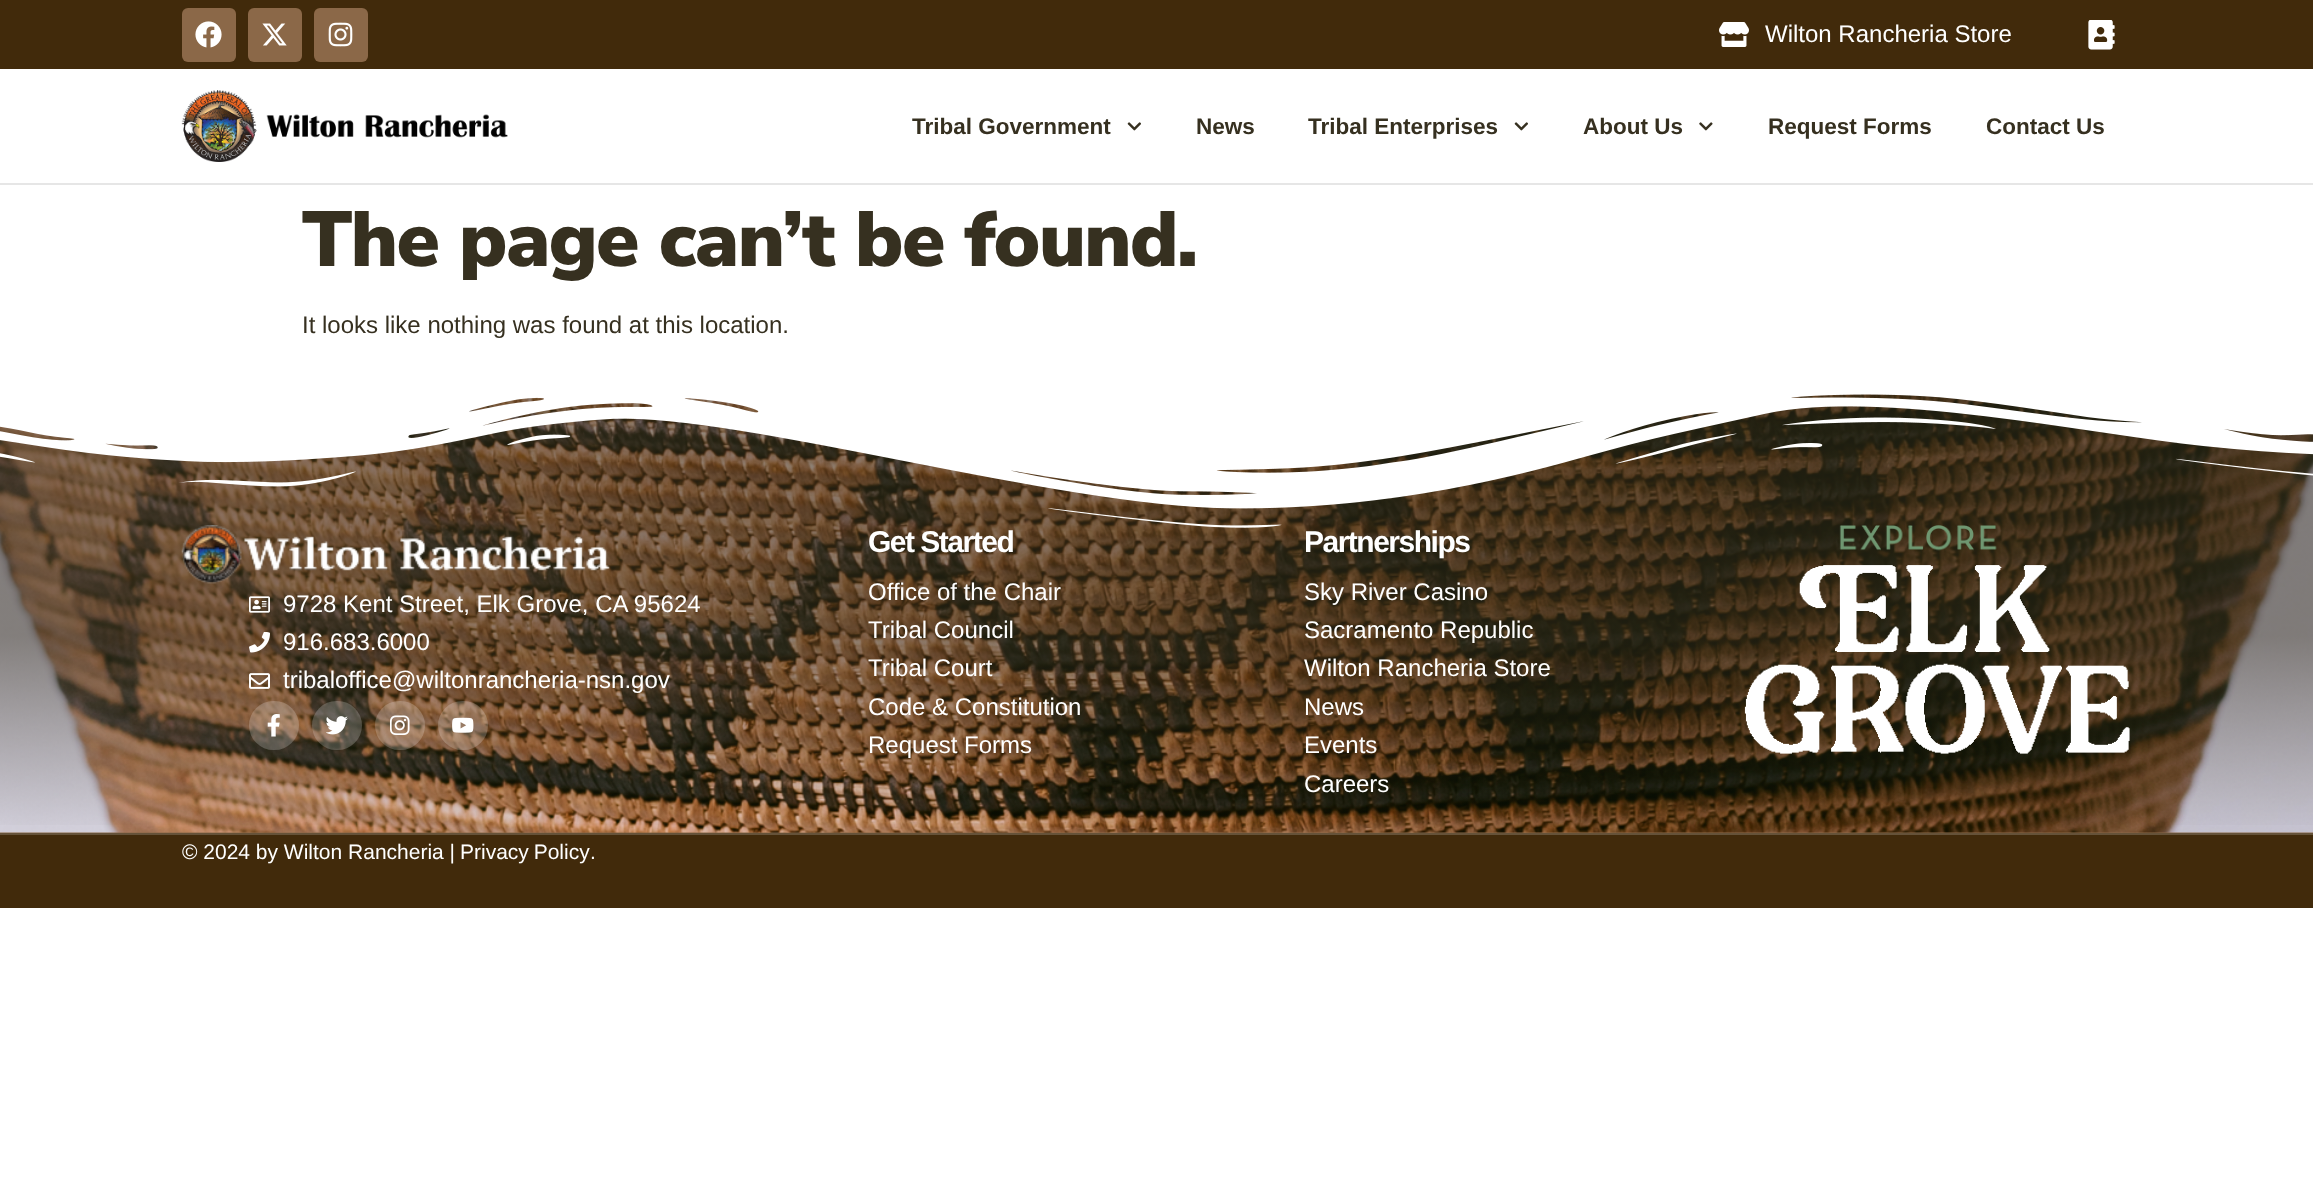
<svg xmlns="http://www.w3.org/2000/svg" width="2313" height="1195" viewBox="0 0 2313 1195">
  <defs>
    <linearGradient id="g1" gradientUnits="userSpaceOnUse" x1="1157" y1="375" x2="1157" y2="833"><stop offset="0.57" stop-color="#363020" stop-opacity="0.5"/><stop offset="1" stop-color="#363020" stop-opacity="0"/></linearGradient>
  </defs>
  <rect width="100%" height="100%" fill="#ffffff"/>
  <rect x="0" y="0" width="2313" height="69" fill="#412a0b"/>
  <rect x="182" y="8" width="54" height="54" rx="6" fill="#8b6848"/>
  <image x="195" y="21" width="27" height="27" href="img1.png"/>
  <rect x="248" y="8" width="54" height="54" rx="6" fill="#8b6848"/>
  <image x="262" y="23" width="25" height="23" href="img2.png"/>
  <rect x="314" y="8" width="54" height="54" rx="6" fill="#8b6848"/>
  <image x="328" y="22" width="25" height="25" href="img3.png"/>
  <image x="1719" y="22" width="30" height="25" href="img4.png"/>
  <text x="1765" y="42" font-family="Liberation Sans" font-size="24" fill="#ffffff">Wilton Rancheria Store</text>
  <image x="2088" y="20" width="27" height="30" href="img5.png"/>
  <rect x="0" y="183" width="2313" height="2" fill="#e6e6e6"/>
  <image x="181" y="90" width="327" height="72" href="img6.png"/>
  <text x="912" y="134" font-family="Liberation Sans" font-size="22.5" font-weight="bold" fill="#363020">Tribal Government</text>
  <image x="1127" y="122" width="14" height="9" href="img7.png"/>
  <text x="1196" y="134" font-family="Liberation Sans" font-size="22.5" font-weight="bold" fill="#363020">News</text>
  <text x="1308" y="134" font-family="Liberation Sans" font-size="22.5" font-weight="bold" fill="#363020">Tribal Enterprises</text>
  <image x="1514" y="122" width="14" height="9" href="img7.png"/>
  <text x="1583" y="134" font-family="Liberation Sans" font-size="22.5" font-weight="bold" fill="#363020">About Us</text>
  <image x="1699" y="122" width="14" height="9" href="img8.png"/>
  <text x="1768" y="134" font-family="Liberation Sans" font-size="22.5" font-weight="bold" fill="#363020">Request Forms</text>
  <text x="1986" y="134" font-family="Liberation Sans" font-size="22.5" font-weight="bold" fill="#363020">Contact Us</text>
  <text x="302" y="266" font-family="Nunito Sans" font-size="78" font-weight="900" letter-spacing="-1.5" fill="#363020">The page can’t be found.</text>
  <text x="302" y="333" font-family="Liberation Sans" font-size="24" fill="#363020">It looks like nothing was found at this location.</text>
  <rect x="0" y="832" width="2313" height="1" fill="#8b6848"/>
  <image x="0" y="394" width="2313" height="439" href="img9.png"/>
  <rect x="0" y="394" width="2313" height="431" fill="url(#g1)"/>
  <image x="0" y="375" width="2313" height="153" href="img10.png"/>
  <image x="181" y="525" width="429" height="59" href="img11.png"/>
  <image x="249" y="596" width="21" height="17" href="img12.png"/>
  <text x="283" y="612" font-family="Liberation Sans" font-size="24" fill="#ffffff">9728 Kent Street, Elk Grove, CA 95624</text>
  <image x="249" y="632" width="21" height="21" href="img13.png"/>
  <text x="283" y="650" font-family="Liberation Sans" font-size="24" fill="#ffffff">916.683.6000</text>
  <image x="249" y="673" width="21" height="16" href="img14.png"/>
  <text x="283" y="688" font-family="Liberation Sans" font-size="24" fill="#ffffff">tribaloffice@wiltonrancheria-nsn.gov</text>
  <rect x="249" y="701" width="50" height="49" rx="24.5" fill="#ffffff" fill-opacity="0.21"/>
  <image x="267" y="714" width="13" height="23" href="img15.png"/>
  <rect x="312" y="701" width="50" height="49" rx="24.5" fill="#ffffff" fill-opacity="0.21"/>
  <image x="326" y="716" width="22" height="19" href="img16.png"/>
  <rect x="375" y="701" width="50" height="49" rx="24.5" fill="#ffffff" fill-opacity="0.21"/>
  <image x="389" y="715" width="21" height="20" href="img17.png"/>
  <rect x="438" y="701" width="50" height="49" rx="24.5" fill="#ffffff" fill-opacity="0.21"/>
  <image x="452" y="717" width="22" height="16" href="img18.png"/>
  <text x="868" y="552" font-family="Liberation Sans" font-size="30" font-weight="bold" letter-spacing="-1.5" fill="#ffffff">Get Started</text>
  <text x="868" y="600" font-family="Liberation Sans" font-size="24" fill="#ffffff">Office of the Chair</text>
  <text x="868" y="638" font-family="Liberation Sans" font-size="24" fill="#ffffff">Tribal Council</text>
  <text x="868" y="676" font-family="Liberation Sans" font-size="24" fill="#ffffff">Tribal Court</text>
  <text x="868" y="715" font-family="Liberation Sans" font-size="24" fill="#ffffff">Code &amp; Constitution</text>
  <text x="868" y="753" font-family="Liberation Sans" font-size="24" fill="#ffffff">Request Forms</text>
  <text x="1304" y="552" font-family="Liberation Sans" font-size="30" font-weight="bold" letter-spacing="-1.5" fill="#ffffff">Partnerships</text>
  <text x="1304" y="600" font-family="Liberation Sans" font-size="24" fill="#ffffff">Sky River Casino</text>
  <text x="1304" y="638" font-family="Liberation Sans" font-size="24" fill="#ffffff">Sacramento Republic</text>
  <text x="1304" y="676" font-family="Liberation Sans" font-size="24" fill="#ffffff">Wilton Rancheria Store</text>
  <text x="1304" y="715" font-family="Liberation Sans" font-size="24" fill="#ffffff">News</text>
  <text x="1304" y="753" font-family="Liberation Sans" font-size="24" fill="#ffffff">Events</text>
  <text x="1304" y="792" font-family="Liberation Sans" font-size="24" fill="#ffffff">Careers</text>
  <image x="1744" y="525" width="386" height="229" href="img19.png"/>
  <rect x="0" y="835" width="2313" height="73" fill="#412a0b"/>
  <rect x="0" y="833" width="2313" height="2" fill="#655239"/>
  <text x="182" y="859" font-family="Liberation Sans" font-size="21" fill="#ffffff">© 2024 by Wilton Rancheria |</text>
  <text x="460" y="859" word-spacing="-1" font-family="Liberation Sans" font-size="21" fill="#ffffff">Privacy Policy</text>
  <text x="590" y="859" font-family="Liberation Sans" font-size="21" fill="#ffffff">.</text>
</svg>
